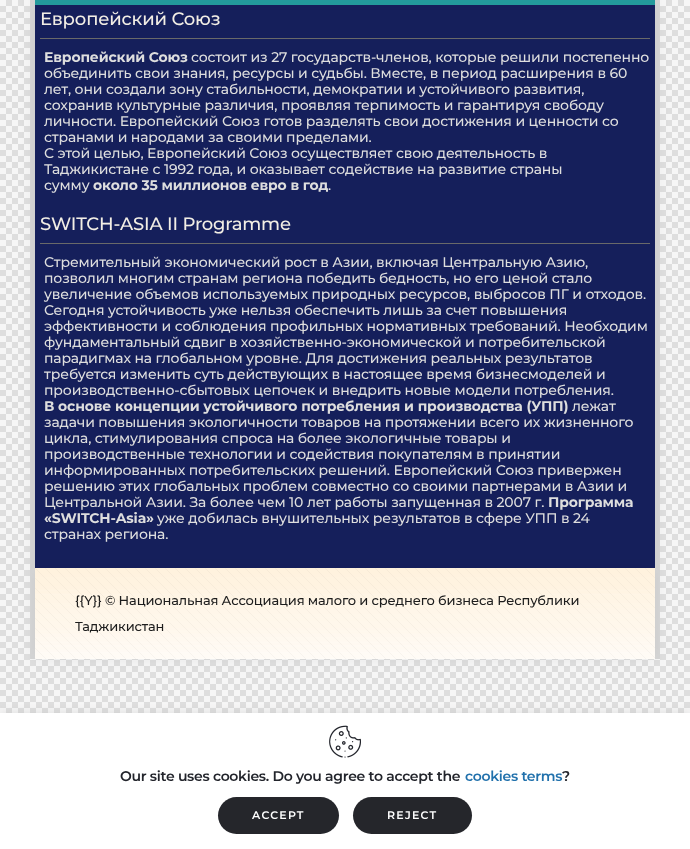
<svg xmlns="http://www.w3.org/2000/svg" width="690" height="849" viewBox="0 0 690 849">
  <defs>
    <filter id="blur1" x="-50%" y="-200%" width="200%" height="500%"><feGaussianBlur stdDeviation="7.5"/></filter>
    <filter id="blur2" x="-50%" y="-200%" width="200%" height="500%"><feGaussianBlur stdDeviation="5"/></filter>
  </defs>
  <rect width="100%" height="100%" fill="#ffffff"/>
  <image x="0" y="0" width="690" height="713" href="img1.png"/>
  <rect x="30" y="0" width="630" height="568" fill="#d6d6d6"/>
  <rect x="35" y="0" width="620" height="568" fill="#050505" fill-opacity="0.06" filter="url(#blur1)"/>
  <rect x="35" y="5" width="620" height="563" fill="#151f5b"/>
  <rect x="35" y="0" width="620" height="5" fill="#239a9c"/>
  <text x="40" y="25" font-family="Montserrat" font-size="18" font-weight="500" letter-spacing="-0.2" fill="#f2eee5">Европейский Союз</text>
  <rect x="40" y="38" width="610" height="1" fill="#696969"/>
  <text x="44" y="62" font-family="Montserrat" font-size="14" font-weight="bold" letter-spacing="-0.15" fill="#dedede">Европейский Союз</text>
  <text x="191" y="62" font-family="Montserrat" font-size="14" font-weight="500" letter-spacing="-0.15" fill="#dedede">состоит из 27 государств-членов, которые решили постепенно</text>
  <text x="44" y="78" font-family="Montserrat" font-size="14" font-weight="500" letter-spacing="-0.15" fill="#dedede">объединить свои знания, ресурсы и судьбы. Вместе, в период расширения в 60</text>
  <text x="44" y="94" font-family="Montserrat" font-size="14" font-weight="500" letter-spacing="-0.15" fill="#dedede">лет, они создали зону стабильности, демократии и устойчивого развития,</text>
  <text x="44" y="110" font-family="Montserrat" font-size="14" font-weight="500" letter-spacing="-0.15" fill="#dedede">сохранив культурные различия, проявляя терпимость и гарантируя свободу</text>
  <text x="44" y="126" font-family="Montserrat" font-size="14" font-weight="500" letter-spacing="-0.15" fill="#dedede">личности. Европейский Союз готов разделять свои достижения и ценности со</text>
  <text x="44" y="142" font-family="Montserrat" font-size="14" font-weight="500" letter-spacing="-0.15" fill="#dedede">странами и народами за своими пределами.</text>
  <text x="44" y="158" font-family="Montserrat" font-size="14" font-weight="500" letter-spacing="-0.15" fill="#dedede">С этой целью, Европейский Союз осуществляет свою деятельность в</text>
  <text x="44" y="174" font-family="Montserrat" font-size="14" font-weight="500" letter-spacing="-0.15" fill="#dedede">Таджикистане с 1992 года, и оказывает содействие на развитие страны</text>
  <text x="44" y="190" font-family="Montserrat" font-size="14" font-weight="500" letter-spacing="-0.15" fill="#dedede">сумму</text>
  <text x="93" y="190" font-family="Montserrat" font-size="14" font-weight="bold" letter-spacing="-0.15" fill="#dedede">около 35 миллионов евро в год</text>
  <text x="328" y="190" font-family="Montserrat" font-size="14" font-weight="500" letter-spacing="-0.15" fill="#dedede">.</text>
  <text x="40" y="230" font-family="Montserrat" font-size="18" font-weight="500" letter-spacing="-0.2" fill="#f2eee5">SWITCH-ASIA II Programme</text>
  <rect x="40" y="243" width="610" height="1" fill="#696969"/>
  <text x="44" y="267" font-family="Montserrat" font-size="14" font-weight="500" letter-spacing="-0.15" fill="#dedede">Стремительный экономический рост в Азии, включая Центральную Азию,</text>
  <text x="44" y="283" font-family="Montserrat" font-size="14" font-weight="500" letter-spacing="-0.15" fill="#dedede">позволил многим странам региона победить бедность, но его ценой стало</text>
  <text x="44" y="299" font-family="Montserrat" font-size="14" font-weight="500" letter-spacing="-0.15" fill="#dedede">увеличение объемов используемых природных ресурсов, выбросов ПГ и отходов.</text>
  <text x="44" y="315" font-family="Montserrat" font-size="14" font-weight="500" letter-spacing="-0.15" fill="#dedede">Сегодня устойчивость уже нельзя обеспечить лишь за счет повышения</text>
  <text x="44" y="331" font-family="Montserrat" font-size="14" font-weight="500" letter-spacing="-0.15" fill="#dedede">эффективности и соблюдения профильных нормативных требований. Необходим</text>
  <text x="44" y="347" font-family="Montserrat" font-size="14" font-weight="500" letter-spacing="-0.15" fill="#dedede">фундаментальный сдвиг в хозяйственно-экономической и потребительской</text>
  <text x="44" y="363" font-family="Montserrat" font-size="14" font-weight="500" letter-spacing="-0.15" fill="#dedede">парадигмах на глобальном уровне. Для достижения реальных результатов</text>
  <text x="44" y="379" font-family="Montserrat" font-size="14" font-weight="500" letter-spacing="-0.15" fill="#dedede">требуется изменить суть действующих в настоящее время бизнесмоделей и</text>
  <text x="44" y="395" font-family="Montserrat" font-size="14" font-weight="500" letter-spacing="-0.15" fill="#dedede">производственно-сбытовых цепочек и внедрить новые модели потребления.</text>
  <text x="44" y="411" font-family="Montserrat" font-size="14" font-weight="bold" letter-spacing="-0.15" fill="#dedede">В основе концепции устойчивого потребления и производства (УПП)</text>
  <text x="572" y="411" font-family="Montserrat" font-size="14" font-weight="500" letter-spacing="-0.15" fill="#dedede">лежат</text>
  <text x="44" y="427" font-family="Montserrat" font-size="14" font-weight="500" letter-spacing="-0.15" fill="#dedede">задачи повышения экологичности товаров на протяжении всего их жизненного</text>
  <text x="44" y="443" font-family="Montserrat" font-size="14" font-weight="500" letter-spacing="-0.15" fill="#dedede">цикла, стимулирования спроса на более экологичные товары и</text>
  <text x="44" y="459" font-family="Montserrat" font-size="14" font-weight="500" letter-spacing="-0.15" fill="#dedede">производственные технологии и содействия покупателям в принятии</text>
  <text x="44" y="475" font-family="Montserrat" font-size="14" font-weight="500" letter-spacing="-0.15" fill="#dedede">информированных потребительских решений. Европейский Союз привержен</text>
  <text x="44" y="491" font-family="Montserrat" font-size="14" font-weight="500" letter-spacing="-0.15" fill="#dedede">решению этих глобальных проблем совместно со своими партнерами в Азии и</text>
  <text x="44" y="507" font-family="Montserrat" font-size="14" font-weight="500" letter-spacing="-0.15" fill="#dedede">Центральной Азии. За более чем 10 лет работы запущенная в 2007 г.</text>
  <text x="548" y="507" font-family="Montserrat" font-size="14" font-weight="bold" letter-spacing="-0.15" fill="#dedede">Программа</text>
  <text x="44" y="523" font-family="Montserrat" font-size="14" font-weight="bold" letter-spacing="-0.15" fill="#dedede">«SWITCH-Asia»</text>
  <text x="157" y="523" font-family="Montserrat" font-size="14" font-weight="500" letter-spacing="-0.15" fill="#dedede">уже добилась внушительных результатов в сфере УПП в 24</text>
  <text x="44" y="539" font-family="Montserrat" font-size="14" font-weight="500" letter-spacing="-0.15" fill="#dedede">странах региона.</text>
  <rect x="30" y="568" width="630" height="91" fill="#d6d6d6"/>
  <rect x="35" y="568" width="620" height="91" fill="#050505" fill-opacity="0.06" filter="url(#blur1)"/>
  <rect x="35" y="568" width="620" height="91" fill="#ffffff"/>
  <image x="35" y="568" width="620" height="91" href="img2.png"/>
  <image x="35" y="568" width="620" height="91" href="img3.png"/>
  <text x="75" y="605" font-family="Montserrat" font-size="13" font-weight="500" letter-spacing="-0.15" fill="#1d1d1d">{{Y}} © Национальная Ассоциация малого и среднего бизнеса Республики</text>
  <text x="75" y="631" font-family="Montserrat" font-size="13" font-weight="500" letter-spacing="-0.15" fill="#1d1d1d">Таджикистан</text>
  <rect x="0" y="712" width="690" height="136" fill="#aeadad" fill-opacity="0.3" filter="url(#blur2)"/>
  <rect x="0" y="713" width="690" height="136" fill="#ffffff"/>
  <image x="329" y="725" width="32" height="33" href="img4.png"/>
  <text x="120" y="781" font-family="Montserrat" font-size="14" font-weight="600" letter-spacing="-0.3" fill="#22242b">Our site uses cookies. Do you agree to accept the</text>
  <text x="465" y="781" font-family="Montserrat" font-size="14" font-weight="600" letter-spacing="-0.3" fill="#2171ac">cookies terms</text>
  <text x="562" y="781" font-family="Montserrat" font-size="14" font-weight="600" letter-spacing="-0.3" fill="#22242b">?</text>
  <rect x="218" y="797" width="121" height="37" rx="18.5" fill="#25262b"/>
  <text x="252" y="819" font-family="Montserrat" font-size="11" font-weight="600" letter-spacing="1.25" fill="#ffffff">ACCEPT</text>
  <rect x="353" y="797" width="119" height="37" rx="18.5" fill="#25262b"/>
  <text x="387" y="819" font-family="Montserrat" font-size="11" font-weight="600" letter-spacing="1.25" fill="#ffffff">REJECT</text>
</svg>
